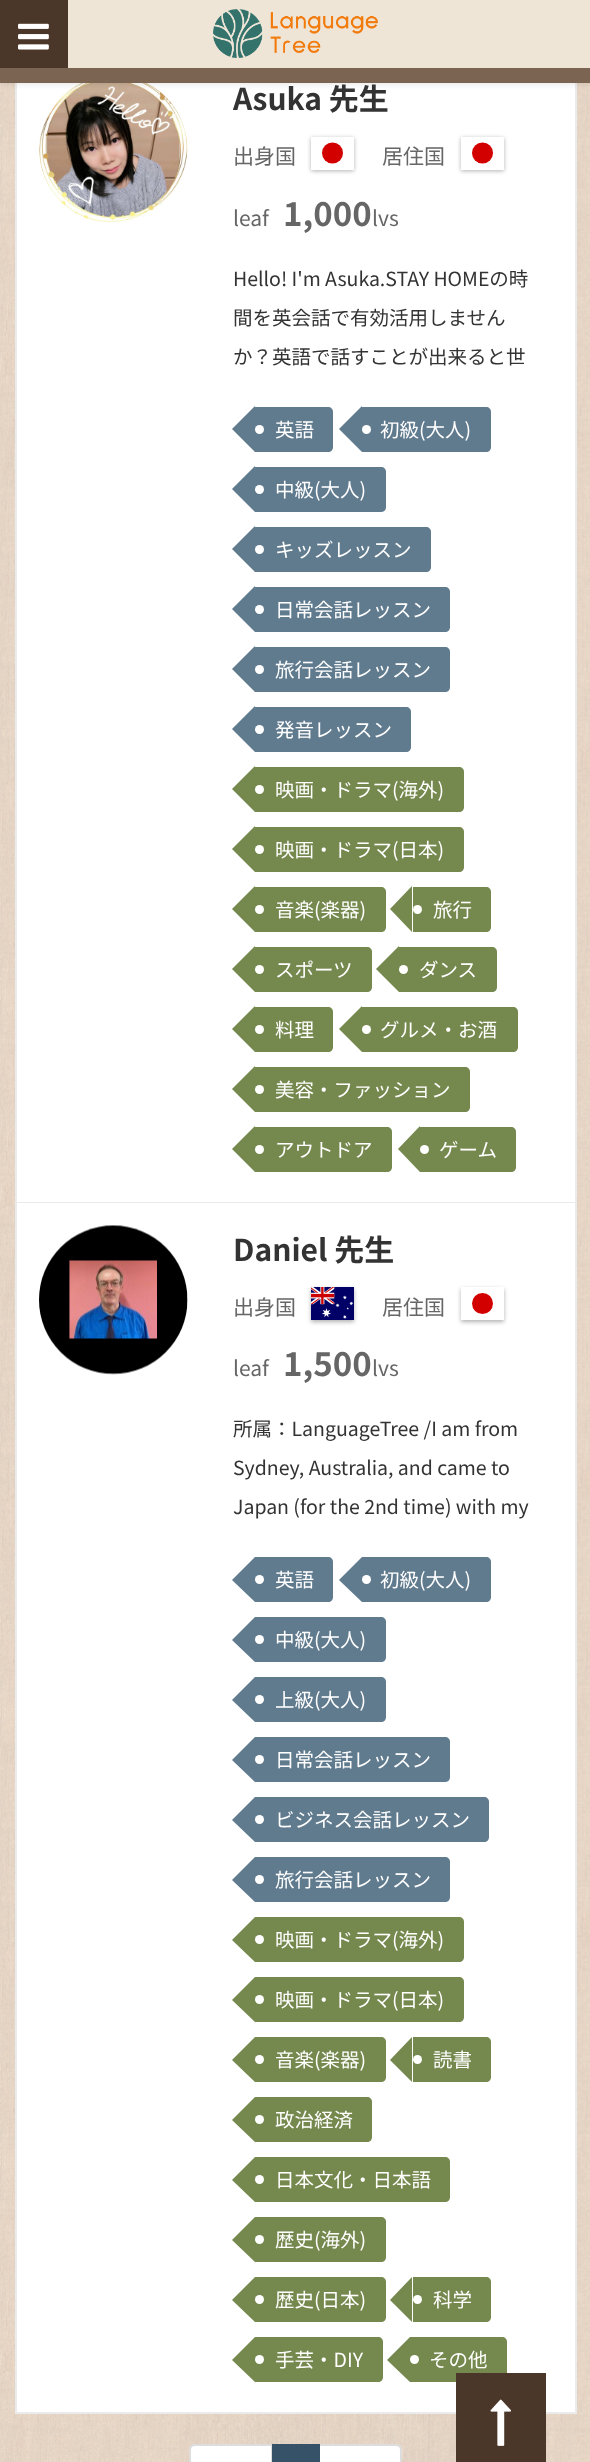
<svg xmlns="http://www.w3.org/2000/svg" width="590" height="2462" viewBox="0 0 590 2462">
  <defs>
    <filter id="blur1" x="-50%" y="-200%" width="200%" height="500%"><feGaussianBlur stdDeviation="3"/></filter>
    <clipPath id="clip1"><path d="M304 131H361V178H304ZM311 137H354V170H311Z" clip-rule="evenodd"/></clipPath>
    <filter id="blur2" x="-50%" y="-200%" width="200%" height="500%"><feGaussianBlur stdDeviation="2"/></filter>
    <clipPath id="clip2"><path d="M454 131H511V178H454ZM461 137H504V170H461Z" clip-rule="evenodd"/></clipPath>
    <clipPath id="clip3"><path d="M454 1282H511V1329H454ZM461 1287H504V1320H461Z" clip-rule="evenodd"/></clipPath>
  </defs>
  <rect width="100%" height="100%" fill="#ffffff"/>
  <image x="0" y="83" width="590" height="2379" href="img3.png"/>
  <rect x="17" y="83" width="558" height="1119" fill="#ffffff"/>
  <rect x="575" y="83" width="2" height="2331" fill="#ebebeb"/>
  <rect x="15" y="1202" width="561" height="1" fill="#ebebeb"/>
  <rect x="15" y="83" width="2" height="1120" fill="#ebebeb"/>
  <image x="39" y="83" width="149" height="140" href="img4.png"/>
  <rect x="0" y="2" width="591" height="82" fill="#000000" fill-opacity="0.1" filter="url(#blur1)"/>
  <rect x="68" y="0" width="522" height="68" fill="#eee5d7"/>
  <rect x="0" y="0" width="68" height="68" fill="#4b3729"/>
  <image x="18" y="23" width="31" height="27" href="img1.png"/>
  <image x="213" y="9" width="165" height="49" href="img2.png"/>
  <rect x="0" y="68" width="590" height="15" fill="#7c6453"/>
  <text x="233" y="110" font-family="Noto Sans JP" font-size="30" font-weight="bold" fill="#333333">Asuka 先生</text>
  <text x="233" y="164" font-family="Noto Sans JP" font-size="21" fill="#666666">出身国</text>
  <g clip-path="url(#clip1)">
    <rect x="311" y="138" width="43" height="33" fill="#000000" fill-opacity="0.3" filter="url(#blur2)"/>
  </g>
  <circle cx="332.5" cy="153" r="10.5" fill="#d30000"/>
  <text x="382" y="164" font-family="Noto Sans JP" font-size="21" fill="#666666">居住国</text>
  <g clip-path="url(#clip2)">
    <rect x="461" y="138" width="43" height="33" fill="#000000" fill-opacity="0.3" filter="url(#blur2)"/>
  </g>
  <circle cx="482.5" cy="153" r="10.5" fill="#d30000"/>
  <text x="233" y="226" font-family="Noto Sans JP" font-size="21" fill="#666666">leaf</text>
  <text x="283" y="226" font-family="Noto Sans JP" font-size="33" font-weight="bold" fill="#666666">1,000</text>
  <text x="372" y="226" font-family="Noto Sans JP" font-size="21" fill="#666666">lvs</text>
  <text x="233" y="286" font-family="Noto Sans JP" font-size="19.5" fill="#333333">Hello! I'm Asuka.STAY HOMEの時</text>
  <text x="233" y="325" font-family="Noto Sans JP" font-size="19.5" fill="#333333">間を英会話で有効活用しません</text>
  <text x="233" y="364" font-family="Noto Sans JP" font-size="19.5" fill="#333333">か？英語で話すことが出来ると世</text>
  <path d="M255 407H328C331 407 333 409 333 412V447C333 450 331 452 328 452H255Z" fill="#607a8e"/>
  <path d="M255 406V452L232 429Z" fill="#607a8e"/>
  <circle cx="259.5" cy="429.5" r="4.5" fill="#ffffff"/>
  <text x="275" y="437" font-family="Noto Sans JP" font-size="19.5" fill="#ffffff">英語</text>
  <path d="M362 407H486C489 407 491 409 491 412V447C491 450 489 452 486 452H362Z" fill="#607a8e"/>
  <path d="M362 406V452L339 429Z" fill="#607a8e"/>
  <circle cx="366.5" cy="429.5" r="4.5" fill="#ffffff"/>
  <text x="380" y="437" font-family="Noto Sans JP" font-size="19.5" fill="#ffffff">初級(大人)</text>
  <path d="M255 467H381C384 467 386 469 386 472V507C386 510 384 512 381 512H255Z" fill="#607a8e"/>
  <path d="M255 466V512L232 489Z" fill="#607a8e"/>
  <circle cx="259.5" cy="489.5" r="4.5" fill="#ffffff"/>
  <text x="275" y="497" font-family="Noto Sans JP" font-size="19.5" fill="#ffffff">中級(大人)</text>
  <path d="M255 527H426C429 527 431 529 431 532V567C431 570 429 572 426 572H255Z" fill="#607a8e"/>
  <path d="M255 526V572L232 549Z" fill="#607a8e"/>
  <circle cx="259.5" cy="549.5" r="4.5" fill="#ffffff"/>
  <text x="275" y="557" font-family="Noto Sans JP" font-size="19.5" fill="#ffffff">キッズレッスン</text>
  <path d="M255 587H445C448 587 450 589 450 592V627C450 630 448 632 445 632H255Z" fill="#607a8e"/>
  <path d="M255 586V632L232 609Z" fill="#607a8e"/>
  <circle cx="259.5" cy="609.5" r="4.5" fill="#ffffff"/>
  <text x="275" y="617" font-family="Noto Sans JP" font-size="19.5" fill="#ffffff">日常会話レッスン</text>
  <path d="M255 647H445C448 647 450 649 450 652V687C450 690 448 692 445 692H255Z" fill="#607a8e"/>
  <path d="M255 646V692L232 669Z" fill="#607a8e"/>
  <circle cx="259.5" cy="669.5" r="4.5" fill="#ffffff"/>
  <text x="275" y="677" font-family="Noto Sans JP" font-size="19.5" fill="#ffffff">旅行会話レッスン</text>
  <path d="M255 707H406C409 707 411 709 411 712V747C411 750 409 752 406 752H255Z" fill="#607a8e"/>
  <path d="M255 706V752L232 729Z" fill="#607a8e"/>
  <circle cx="259.5" cy="729.5" r="4.5" fill="#ffffff"/>
  <text x="275" y="737" font-family="Noto Sans JP" font-size="19.5" fill="#ffffff">発音レッスン</text>
  <path d="M255 767H459C462 767 464 769 464 772V807C464 810 462 812 459 812H255Z" fill="#75884d"/>
  <path d="M255 766V812L232 789Z" fill="#75884d"/>
  <circle cx="259.5" cy="789.5" r="4.5" fill="#ffffff"/>
  <text x="275" y="797" font-family="Noto Sans JP" font-size="19.5" fill="#ffffff">映画・ドラマ(海外)</text>
  <path d="M255 827H459C462 827 464 829 464 832V867C464 870 462 872 459 872H255Z" fill="#75884d"/>
  <path d="M255 826V872L232 849Z" fill="#75884d"/>
  <circle cx="259.5" cy="849.5" r="4.5" fill="#ffffff"/>
  <text x="275" y="857" font-family="Noto Sans JP" font-size="19.5" fill="#ffffff">映画・ドラマ(日本)</text>
  <path d="M255 887H381C384 887 386 889 386 892V927C386 930 384 932 381 932H255Z" fill="#75884d"/>
  <path d="M255 886V932L232 909Z" fill="#75884d"/>
  <circle cx="259.5" cy="909.5" r="4.5" fill="#ffffff"/>
  <text x="275" y="917" font-family="Noto Sans JP" font-size="19.5" fill="#ffffff">音楽(楽器)</text>
  <path d="M413 887H486C489 887 491 889 491 892V927C491 930 489 932 486 932H413Z" fill="#75884d"/>
  <path d="M412 886V932L390 909Z" fill="#75884d"/>
  <circle cx="417.5" cy="909.5" r="4.5" fill="#ffffff"/>
  <text x="433" y="917" font-family="Noto Sans JP" font-size="19.5" fill="#ffffff">旅行</text>
  <path d="M255 947H367C370 947 372 949 372 952V987C372 990 370 992 367 992H255Z" fill="#75884d"/>
  <path d="M255 946V992L232 969Z" fill="#75884d"/>
  <circle cx="259.5" cy="969.5" r="4.5" fill="#ffffff"/>
  <text x="275" y="977" font-family="Noto Sans JP" font-size="19.5" fill="#ffffff">スポーツ</text>
  <path d="M399 947H492C495 947 497 949 497 952V987C497 990 495 992 492 992H399Z" fill="#75884d"/>
  <path d="M399 946V992L376 969Z" fill="#75884d"/>
  <circle cx="403.5" cy="969.5" r="4.5" fill="#ffffff"/>
  <text x="419" y="977" font-family="Noto Sans JP" font-size="19.5" fill="#ffffff">ダンス</text>
  <path d="M255 1007H328C331 1007 333 1009 333 1012V1047C333 1050 331 1052 328 1052H255Z" fill="#75884d"/>
  <path d="M255 1006V1052L232 1029Z" fill="#75884d"/>
  <circle cx="259.5" cy="1029.5" r="4.5" fill="#ffffff"/>
  <text x="275" y="1037" font-family="Noto Sans JP" font-size="19.5" fill="#ffffff">料理</text>
  <path d="M362 1007H513C516 1007 518 1009 518 1012V1047C518 1050 516 1052 513 1052H362Z" fill="#75884d"/>
  <path d="M362 1006V1052L339 1029Z" fill="#75884d"/>
  <circle cx="366.5" cy="1029.5" r="4.5" fill="#ffffff"/>
  <text x="380" y="1037" font-family="Noto Sans JP" font-size="19.5" fill="#ffffff">グルメ・お酒</text>
  <path d="M255 1067H465C468 1067 470 1069 470 1072V1107C470 1110 468 1112 465 1112H255Z" fill="#75884d"/>
  <path d="M255 1066V1112L232 1089Z" fill="#75884d"/>
  <circle cx="259.5" cy="1089.5" r="4.5" fill="#ffffff"/>
  <text x="275" y="1097" font-family="Noto Sans JP" font-size="19.5" fill="#ffffff">美容・ファッション</text>
  <path d="M255 1127H387C390 1127 392 1129 392 1132V1167C392 1170 390 1172 387 1172H255Z" fill="#75884d"/>
  <path d="M255 1126V1172L232 1149Z" fill="#75884d"/>
  <circle cx="259.5" cy="1149.5" r="4.5" fill="#ffffff"/>
  <text x="275" y="1157" font-family="Noto Sans JP" font-size="19.5" fill="#ffffff">アウトドア</text>
  <path d="M420 1127H511C514 1127 516 1129 516 1132V1167C516 1170 514 1172 511 1172H420Z" fill="#75884d"/>
  <path d="M420 1126V1172L398 1149Z" fill="#75884d"/>
  <circle cx="424.5" cy="1149.5" r="4.5" fill="#ffffff"/>
  <text x="439" y="1157" font-family="Noto Sans JP" font-size="19.5" fill="#ffffff">ゲーム</text>
  <rect x="17" y="1203" width="558" height="1209" fill="#ffffff"/>
  <rect x="15" y="2412" width="561" height="2" fill="#ebebeb"/>
  <rect x="15" y="1203" width="2" height="1211" fill="#ebebeb"/>
  <image x="39" y="1225" width="149" height="150" href="img5.png"/>
  <text x="233" y="1261" font-family="Noto Sans JP" font-size="30" font-weight="bold" fill="#333333">Daniel 先生</text>
  <text x="233" y="1315" font-family="Noto Sans JP" font-size="21" fill="#666666">出身国</text>
  <rect x="311" y="1289" width="43" height="33" fill="#000000" fill-opacity="0.3" filter="url(#blur2)"/>
  <image x="311" y="1287" width="43" height="33" href="img6.png"/>
  <text x="382" y="1315" font-family="Noto Sans JP" font-size="21" fill="#666666">居住国</text>
  <g clip-path="url(#clip3)">
    <rect x="461" y="1289" width="43" height="33" fill="#000000" fill-opacity="0.3" filter="url(#blur2)"/>
  </g>
  <circle cx="482.5" cy="1303.5" r="10.5" fill="#d30000"/>
  <text x="233" y="1376" font-family="Noto Sans JP" font-size="21" fill="#666666">leaf</text>
  <text x="283" y="1376" font-family="Noto Sans JP" font-size="33" font-weight="bold" fill="#666666">1,500</text>
  <text x="372" y="1376" font-family="Noto Sans JP" font-size="21" fill="#666666">lvs</text>
  <text x="233" y="1436" font-family="Noto Sans JP" font-size="19.5" fill="#333333">所属：LanguageTree /I am from</text>
  <text x="233" y="1475" font-family="Noto Sans JP" font-size="19.5" fill="#333333">Sydney, Australia, and came to</text>
  <text x="233" y="1514" font-family="Noto Sans JP" font-size="19.5" fill="#333333">Japan (for the 2nd time) with my</text>
  <path d="M255 1557H328C331 1557 333 1559 333 1562V1597C333 1600 331 1602 328 1602H255Z" fill="#607a8e"/>
  <path d="M255 1557V1602L232 1580Z" fill="#607a8e"/>
  <circle cx="259.5" cy="1579.5" r="4.5" fill="#ffffff"/>
  <text x="275" y="1587" font-family="Noto Sans JP" font-size="19.5" fill="#ffffff">英語</text>
  <path d="M362 1557H486C489 1557 491 1559 491 1562V1597C491 1600 489 1602 486 1602H362Z" fill="#607a8e"/>
  <path d="M362 1557V1602L339 1580Z" fill="#607a8e"/>
  <circle cx="366.5" cy="1579.5" r="4.5" fill="#ffffff"/>
  <text x="380" y="1587" font-family="Noto Sans JP" font-size="19.5" fill="#ffffff">初級(大人)</text>
  <path d="M255 1617H381C384 1617 386 1619 386 1622V1657C386 1660 384 1662 381 1662H255Z" fill="#607a8e"/>
  <path d="M255 1617V1662L232 1640Z" fill="#607a8e"/>
  <circle cx="259.5" cy="1639.5" r="4.5" fill="#ffffff"/>
  <text x="275" y="1647" font-family="Noto Sans JP" font-size="19.5" fill="#ffffff">中級(大人)</text>
  <path d="M255 1677H381C384 1677 386 1679 386 1682V1717C386 1720 384 1722 381 1722H255Z" fill="#607a8e"/>
  <path d="M255 1677V1722L232 1700Z" fill="#607a8e"/>
  <circle cx="259.5" cy="1699.5" r="4.5" fill="#ffffff"/>
  <text x="275" y="1707" font-family="Noto Sans JP" font-size="19.5" fill="#ffffff">上級(大人)</text>
  <path d="M255 1737H445C448 1737 450 1739 450 1742V1777C450 1780 448 1782 445 1782H255Z" fill="#607a8e"/>
  <path d="M255 1737V1782L232 1760Z" fill="#607a8e"/>
  <circle cx="259.5" cy="1759.5" r="4.5" fill="#ffffff"/>
  <text x="275" y="1767" font-family="Noto Sans JP" font-size="19.5" fill="#ffffff">日常会話レッスン</text>
  <path d="M255 1797H484C487 1797 489 1799 489 1802V1837C489 1840 487 1842 484 1842H255Z" fill="#607a8e"/>
  <path d="M255 1797V1842L232 1820Z" fill="#607a8e"/>
  <circle cx="259.5" cy="1819.5" r="4.5" fill="#ffffff"/>
  <text x="275" y="1827" font-family="Noto Sans JP" font-size="19.5" fill="#ffffff">ビジネス会話レッスン</text>
  <path d="M255 1857H445C448 1857 450 1859 450 1862V1897C450 1900 448 1902 445 1902H255Z" fill="#607a8e"/>
  <path d="M255 1857V1902L232 1880Z" fill="#607a8e"/>
  <circle cx="259.5" cy="1879.5" r="4.5" fill="#ffffff"/>
  <text x="275" y="1887" font-family="Noto Sans JP" font-size="19.5" fill="#ffffff">旅行会話レッスン</text>
  <path d="M255 1917H459C462 1917 464 1919 464 1922V1957C464 1960 462 1962 459 1962H255Z" fill="#75884d"/>
  <path d="M255 1917V1962L232 1940Z" fill="#75884d"/>
  <circle cx="259.5" cy="1939.5" r="4.5" fill="#ffffff"/>
  <text x="275" y="1947" font-family="Noto Sans JP" font-size="19.5" fill="#ffffff">映画・ドラマ(海外)</text>
  <path d="M255 1977H459C462 1977 464 1979 464 1982V2017C464 2020 462 2022 459 2022H255Z" fill="#75884d"/>
  <path d="M255 1977V2022L232 2000Z" fill="#75884d"/>
  <circle cx="259.5" cy="1999.5" r="4.5" fill="#ffffff"/>
  <text x="275" y="2007" font-family="Noto Sans JP" font-size="19.5" fill="#ffffff">映画・ドラマ(日本)</text>
  <path d="M255 2037H381C384 2037 386 2039 386 2042V2077C386 2080 384 2082 381 2082H255Z" fill="#75884d"/>
  <path d="M255 2037V2082L232 2060Z" fill="#75884d"/>
  <circle cx="259.5" cy="2059.5" r="4.5" fill="#ffffff"/>
  <text x="275" y="2067" font-family="Noto Sans JP" font-size="19.5" fill="#ffffff">音楽(楽器)</text>
  <path d="M413 2037H486C489 2037 491 2039 491 2042V2077C491 2080 489 2082 486 2082H413Z" fill="#75884d"/>
  <path d="M412 2037V2082L390 2060Z" fill="#75884d"/>
  <circle cx="417.5" cy="2059.5" r="4.5" fill="#ffffff"/>
  <text x="433" y="2067" font-family="Noto Sans JP" font-size="19.5" fill="#ffffff">読書</text>
  <path d="M255 2097H367C370 2097 372 2099 372 2102V2137C372 2140 370 2142 367 2142H255Z" fill="#75884d"/>
  <path d="M255 2097V2142L232 2120Z" fill="#75884d"/>
  <circle cx="259.5" cy="2119.5" r="4.5" fill="#ffffff"/>
  <text x="275" y="2127" font-family="Noto Sans JP" font-size="19.5" fill="#ffffff">政治経済</text>
  <path d="M255 2157H445C448 2157 450 2159 450 2162V2197C450 2200 448 2202 445 2202H255Z" fill="#75884d"/>
  <path d="M255 2157V2202L232 2180Z" fill="#75884d"/>
  <circle cx="259.5" cy="2179.5" r="4.5" fill="#ffffff"/>
  <text x="275" y="2187" font-family="Noto Sans JP" font-size="19.5" fill="#ffffff">日本文化・日本語</text>
  <path d="M255 2217H381C384 2217 386 2219 386 2222V2257C386 2260 384 2262 381 2262H255Z" fill="#75884d"/>
  <path d="M255 2217V2262L232 2240Z" fill="#75884d"/>
  <circle cx="259.5" cy="2239.5" r="4.5" fill="#ffffff"/>
  <text x="275" y="2247" font-family="Noto Sans JP" font-size="19.5" fill="#ffffff">歴史(海外)</text>
  <path d="M255 2277H381C384 2277 386 2279 386 2282V2317C386 2320 384 2322 381 2322H255Z" fill="#75884d"/>
  <path d="M255 2277V2322L232 2300Z" fill="#75884d"/>
  <circle cx="259.5" cy="2299.5" r="4.5" fill="#ffffff"/>
  <text x="275" y="2307" font-family="Noto Sans JP" font-size="19.5" fill="#ffffff">歴史(日本)</text>
  <path d="M413 2277H486C489 2277 491 2279 491 2282V2317C491 2320 489 2322 486 2322H413Z" fill="#75884d"/>
  <path d="M412 2277V2322L390 2300Z" fill="#75884d"/>
  <circle cx="417.5" cy="2299.5" r="4.5" fill="#ffffff"/>
  <text x="433" y="2307" font-family="Noto Sans JP" font-size="19.5" fill="#ffffff">科学</text>
  <path d="M255 2337H378C381 2337 383 2339 383 2342V2377C383 2380 381 2382 378 2382H255Z" fill="#75884d"/>
  <path d="M255 2337V2382L232 2360Z" fill="#75884d"/>
  <circle cx="259.5" cy="2359.5" r="4.5" fill="#ffffff"/>
  <text x="275" y="2367" font-family="Noto Sans JP" font-size="19.5" fill="#ffffff">手芸・DIY</text>
  <path d="M410 2337H502C505 2337 507 2339 507 2342V2377C507 2380 505 2382 502 2382H410Z" fill="#75884d"/>
  <path d="M410 2337V2382L387 2360Z" fill="#75884d"/>
  <circle cx="414.5" cy="2359.5" r="4.5" fill="#ffffff"/>
  <text x="429" y="2367" font-family="Noto Sans JP" font-size="19.5" fill="#ffffff">その他</text>
  <path d="M195 2445H272V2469H195C192 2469 190 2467 190 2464V2450C190 2447 192 2445 195 2445Z" fill="#ffffff" stroke="#dddddd" stroke-width="2"/>
  <path d="M319 2445H396C399 2445 401 2447 401 2450V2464C401 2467 399 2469 396 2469H319Z" fill="#ffffff" stroke="#dddddd" stroke-width="2"/>
  <rect x="272" y="2444" width="48" height="18" fill="#365268"/>
  <rect x="456" y="2373" width="90" height="89" fill="#4b3729"/>
  <image x="490" y="2399" width="21" height="47" href="img7.png"/>
</svg>
